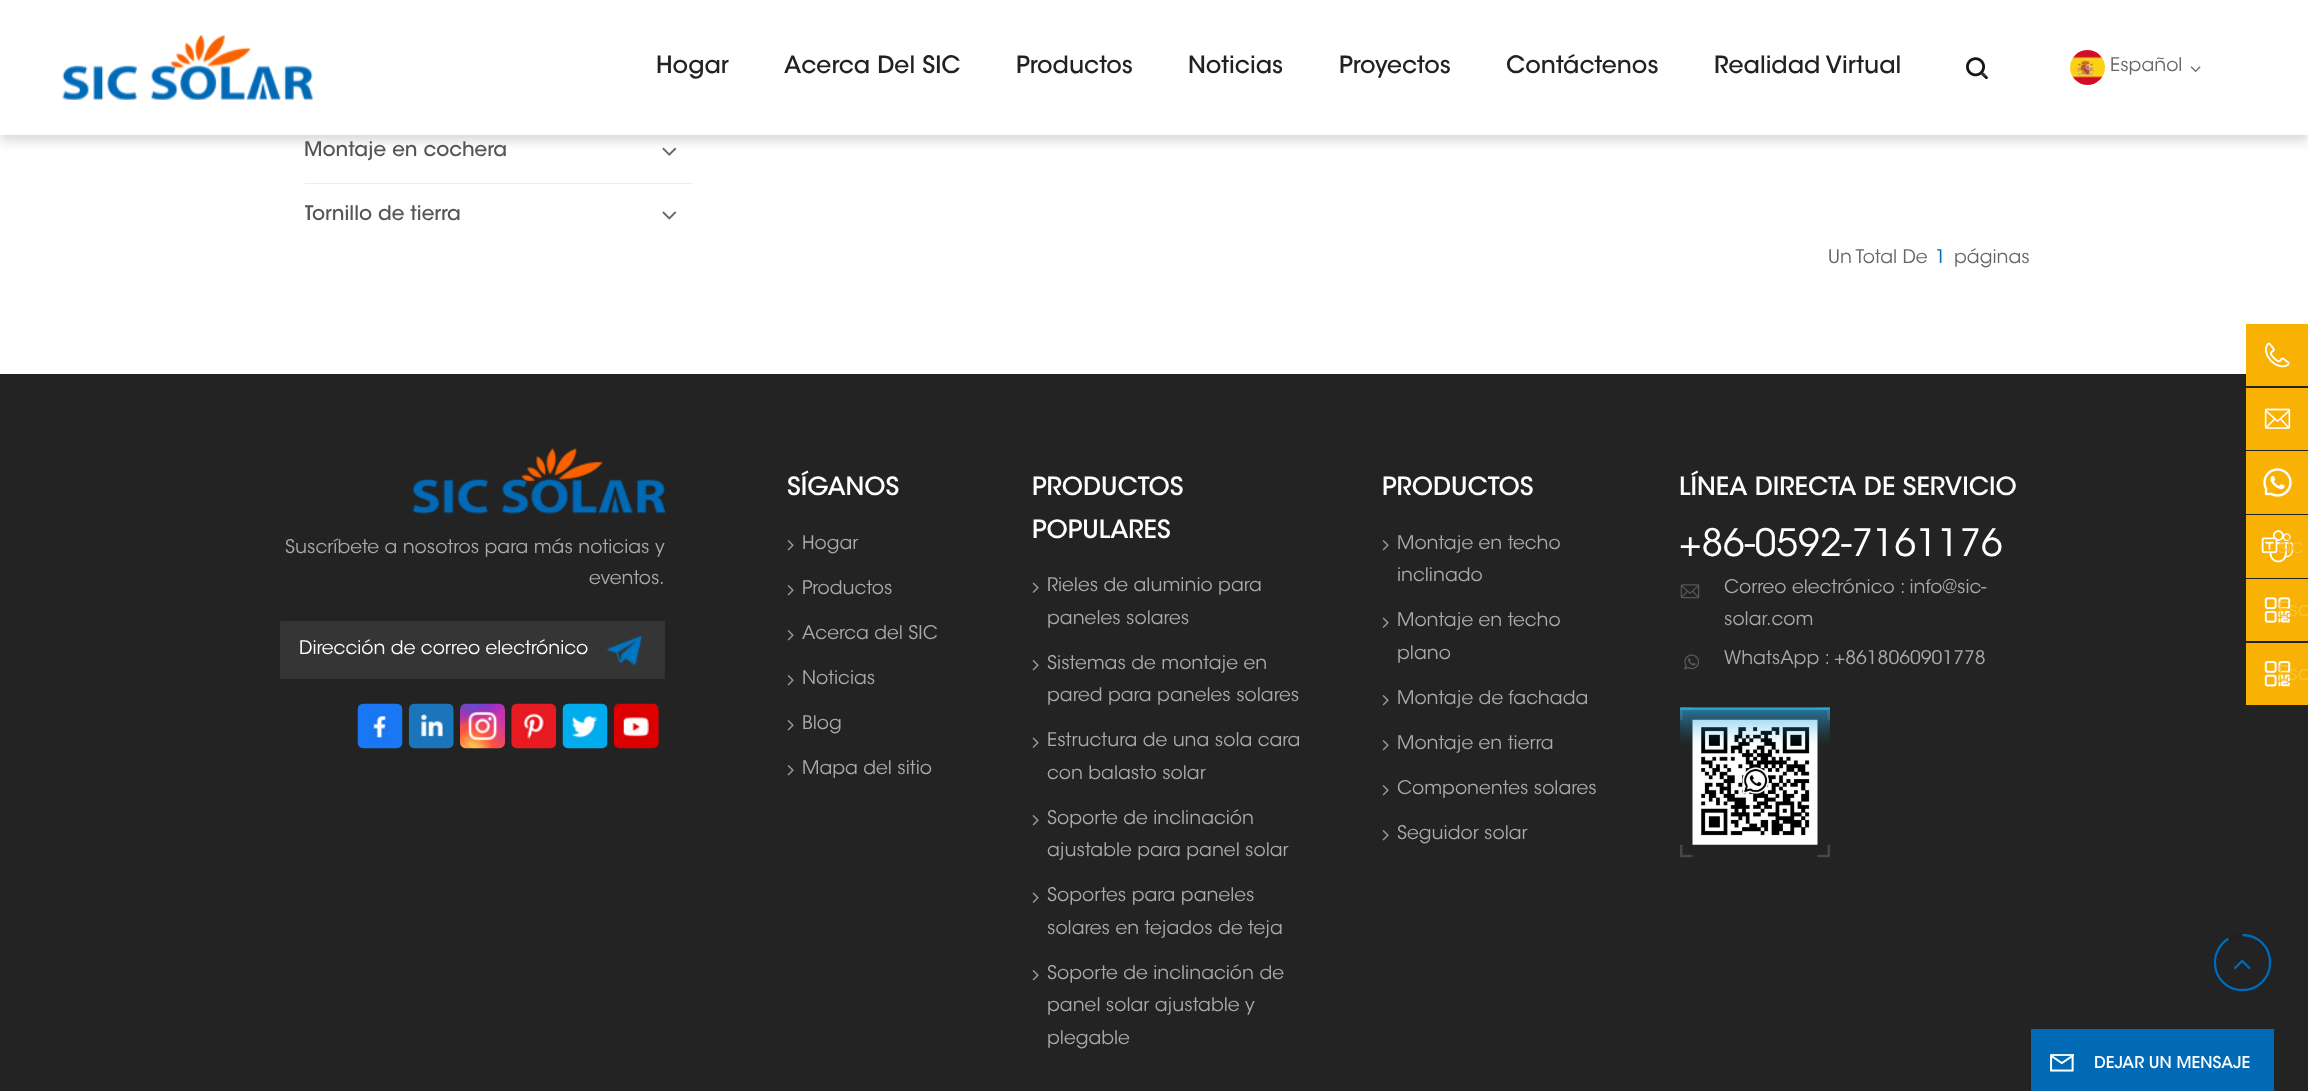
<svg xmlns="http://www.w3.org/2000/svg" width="2308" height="1091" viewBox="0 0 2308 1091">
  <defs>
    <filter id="blur1" x="-50%" y="-200%" width="200%" height="500%"><feGaussianBlur stdDeviation="6"/></filter>
    <clipPath id="clip1"><rect x="305" y="0" width="388" height="246"/></clipPath>
    <clipPath id="clip2"><rect x="2214" y="934" width="57" height="57"/></clipPath>
  </defs>
  <rect width="100%" height="100%" fill="#ffffff"/>
  <image x="662" y="147" width="15" height="9" href="img5.png"/>
  <rect x="0" y="6" width="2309" height="135" fill="#000000" fill-opacity="0.15" filter="url(#blur1)"/>
  <rect x="0" y="0" width="2308" height="135" fill="#ffffff"/>
  <image x="62" y="35" width="251" height="65" href="img1.png"/>
  <text x="656" y="73" font-family="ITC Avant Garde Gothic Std" font-size="23.75" font-weight="500" fill="#222222">Hogar</text>
  <text x="784" y="73" font-family="ITC Avant Garde Gothic Std" font-size="23.75" font-weight="500" fill="#222222">Acerca Del SIC</text>
  <text x="1016" y="73" font-family="ITC Avant Garde Gothic Std" font-size="23.75" font-weight="500" fill="#222222">Productos</text>
  <text x="1188" y="73" font-family="ITC Avant Garde Gothic Std" font-size="23.75" font-weight="500" fill="#222222">Noticias</text>
  <text x="1339" y="73" font-family="ITC Avant Garde Gothic Std" font-size="23.75" font-weight="500" fill="#222222">Proyectos</text>
  <text x="1506" y="73" font-family="ITC Avant Garde Gothic Std" font-size="23.75" font-weight="500" fill="#222222">Contáctenos</text>
  <text x="1714" y="73" font-family="ITC Avant Garde Gothic Std" font-size="23.75" font-weight="500" fill="#222222">Realidad Virtual</text>
  <image x="1966" y="57" width="22" height="23" href="img2.png"/>
  <image x="2070" y="50" width="35" height="35" href="img3.png"/>
  <text x="2110" y="71" font-family="ITC Avant Garde Gothic Std" font-size="18.75" font-weight="300" fill="#666666">Español</text>
  <image x="2190" y="66" width="11" height="6" href="img4.png"/>
  <rect x="305" y="183" width="388" height="1" fill="#eeeeee"/>
  <text x="304" y="156" font-family="ITC Avant Garde Gothic Std" font-size="20" font-weight="500" fill="#555555">Montaje en cochera</text>
  <g clip-path="url(#clip1)">
    <text x="304" y="220" font-family="ITC Avant Garde Gothic Std" font-size="20" font-weight="500" fill="#555555">Tornillo de tierra</text>
  </g>
  <image x="662" y="211" width="15" height="9" href="img6.png"/>
  <text x="1828" y="263" font-family="ITC Avant Garde Gothic Std" font-size="18.75" font-weight="300" fill="#666666">Un Total De</text>
  <text x="1935" y="263" font-family="ITC Avant Garde Gothic Std" font-size="18.75" font-weight="300" fill="#006ab7">1</text>
  <text x="1954" y="263" font-family="ITC Avant Garde Gothic Std" font-size="18.75" font-weight="300" fill="#666666">páginas</text>
  <rect x="0" y="374" width="2308" height="717" fill="#232323"/>
  <image x="412" y="448" width="253" height="66" href="img7.png"/>
  <text x="285" y="553" font-family="ITC Avant Garde Gothic Std" font-size="18.75" font-weight="300" fill="#aaaaaa">Suscríbete a nosotros para más noticias y</text>
  <text x="589" y="584" font-family="ITC Avant Garde Gothic Std" font-size="18.75" font-weight="300" fill="#aaaaaa">eventos.</text>
  <rect x="280.5" y="621.5" width="384" height="57" fill="#353535" stroke="#333333"/>
  <text x="299" y="654" font-family="ITC Avant Garde Gothic Std" font-size="18.75" font-weight="300" fill="#ffffff">Dirección de correo electrónico</text>
  <image x="607" y="636" width="35" height="29" href="img8.png"/>
  <image x="357" y="703" width="46" height="46" href="img9.png"/>
  <image x="408" y="703" width="46" height="46" href="img10.png"/>
  <image x="460" y="703" width="45" height="46" href="img11.png"/>
  <image x="511" y="703" width="46" height="46" href="img12.png"/>
  <image x="562" y="703" width="46" height="46" href="img13.png"/>
  <image x="613" y="703" width="46" height="46" href="img14.png"/>
  <text x="787" y="495" font-family="ITC Avant Garde Gothic Std" font-size="25" font-weight="500" fill="#ffffff">SÍGANOS</text>
  <image x="787" y="540" width="7" height="11" href="img15.png"/>
  <text x="802" y="549" font-family="ITC Avant Garde Gothic Std" font-size="18.75" font-weight="300" fill="#aaaaaa">Hogar</text>
  <image x="787" y="585" width="7" height="11" href="img15.png"/>
  <text x="802" y="594" font-family="ITC Avant Garde Gothic Std" font-size="18.75" font-weight="300" fill="#aaaaaa">Productos</text>
  <image x="787" y="630" width="7" height="11" href="img15.png"/>
  <text x="802" y="639" font-family="ITC Avant Garde Gothic Std" font-size="18.75" font-weight="300" fill="#aaaaaa">Acerca del SIC</text>
  <image x="787" y="675" width="7" height="11" href="img15.png"/>
  <text x="802" y="684" font-family="ITC Avant Garde Gothic Std" font-size="18.75" font-weight="300" fill="#aaaaaa">Noticias</text>
  <image x="787" y="720" width="7" height="11" href="img15.png"/>
  <text x="802" y="729" font-family="ITC Avant Garde Gothic Std" font-size="18.75" font-weight="300" fill="#aaaaaa">Blog</text>
  <image x="787" y="765" width="7" height="11" href="img15.png"/>
  <text x="802" y="774" font-family="ITC Avant Garde Gothic Std" font-size="18.75" font-weight="300" fill="#aaaaaa">Mapa del sitio</text>
  <text x="1032" y="495" font-family="ITC Avant Garde Gothic Std" font-size="25" font-weight="500" fill="#ffffff">PRODUCTOS</text>
  <text x="1032" y="538" font-family="ITC Avant Garde Gothic Std" font-size="25" font-weight="500" fill="#ffffff">POPULARES</text>
  <image x="1032" y="582" width="7" height="11" href="img16.png"/>
  <text x="1047" y="591" font-family="ITC Avant Garde Gothic Std" font-size="18.75" font-weight="300" fill="#aaaaaa">Rieles de aluminio para</text>
  <text x="1047" y="624" font-family="ITC Avant Garde Gothic Std" font-size="18.75" font-weight="300" fill="#aaaaaa">paneles solares</text>
  <image x="1032" y="660" width="7" height="11" href="img15.png"/>
  <text x="1047" y="669" font-family="ITC Avant Garde Gothic Std" font-size="18.75" font-weight="300" fill="#aaaaaa">Sistemas de montaje en</text>
  <text x="1047" y="701" font-family="ITC Avant Garde Gothic Std" font-size="18.75" font-weight="300" fill="#aaaaaa">pared para paneles solares</text>
  <image x="1032" y="737" width="7" height="11" href="img16.png"/>
  <text x="1047" y="746" font-family="ITC Avant Garde Gothic Std" font-size="18.75" font-weight="300" fill="#aaaaaa">Estructura de una sola cara</text>
  <text x="1047" y="779" font-family="ITC Avant Garde Gothic Std" font-size="18.75" font-weight="300" fill="#aaaaaa">con balasto solar</text>
  <image x="1032" y="815" width="7" height="11" href="img15.png"/>
  <text x="1047" y="824" font-family="ITC Avant Garde Gothic Std" font-size="18.75" font-weight="300" fill="#aaaaaa">Soporte de inclinación</text>
  <text x="1047" y="856" font-family="ITC Avant Garde Gothic Std" font-size="18.75" font-weight="300" fill="#aaaaaa">ajustable para panel solar</text>
  <image x="1032" y="892" width="7" height="11" href="img16.png"/>
  <text x="1047" y="901" font-family="ITC Avant Garde Gothic Std" font-size="18.75" font-weight="300" fill="#aaaaaa">Soportes para paneles</text>
  <text x="1047" y="934" font-family="ITC Avant Garde Gothic Std" font-size="18.75" font-weight="300" fill="#aaaaaa">solares en tejados de teja</text>
  <image x="1032" y="970" width="7" height="11" href="img15.png"/>
  <text x="1047" y="979" font-family="ITC Avant Garde Gothic Std" font-size="18.75" font-weight="300" fill="#aaaaaa">Soporte de inclinación de</text>
  <text x="1047" y="1011" font-family="ITC Avant Garde Gothic Std" font-size="18.75" font-weight="300" fill="#aaaaaa">panel solar ajustable y</text>
  <text x="1047" y="1044" font-family="ITC Avant Garde Gothic Std" font-size="18.75" font-weight="300" fill="#aaaaaa">plegable</text>
  <text x="1382" y="495" font-family="ITC Avant Garde Gothic Std" font-size="25" font-weight="500" fill="#ffffff">PRODUCTOS</text>
  <image x="1382" y="540" width="7" height="11" href="img15.png"/>
  <text x="1397" y="549" font-family="ITC Avant Garde Gothic Std" font-size="18.75" font-weight="300" fill="#aaaaaa">Montaje en techo</text>
  <text x="1397" y="581" font-family="ITC Avant Garde Gothic Std" font-size="18.75" font-weight="300" fill="#aaaaaa">inclinado</text>
  <image x="1382" y="617" width="7" height="11" href="img16.png"/>
  <text x="1397" y="626" font-family="ITC Avant Garde Gothic Std" font-size="18.75" font-weight="300" fill="#aaaaaa">Montaje en techo</text>
  <text x="1397" y="659" font-family="ITC Avant Garde Gothic Std" font-size="18.75" font-weight="300" fill="#aaaaaa">plano</text>
  <image x="1382" y="695" width="7" height="11" href="img15.png"/>
  <text x="1397" y="704" font-family="ITC Avant Garde Gothic Std" font-size="18.75" font-weight="300" fill="#aaaaaa">Montaje de fachada</text>
  <image x="1382" y="740" width="7" height="11" href="img15.png"/>
  <text x="1397" y="749" font-family="ITC Avant Garde Gothic Std" font-size="18.75" font-weight="300" fill="#aaaaaa">Montaje en tierra</text>
  <image x="1382" y="785" width="7" height="11" href="img15.png"/>
  <text x="1397" y="794" font-family="ITC Avant Garde Gothic Std" font-size="18.75" font-weight="300" fill="#aaaaaa">Componentes solares</text>
  <image x="1382" y="830" width="7" height="11" href="img15.png"/>
  <text x="1397" y="839" font-family="ITC Avant Garde Gothic Std" font-size="18.75" font-weight="300" fill="#aaaaaa">Seguidor solar</text>
  <text x="1679" y="495" font-family="ITC Avant Garde Gothic Std" font-size="25" font-weight="500" fill="#ffffff">LÍNEA DIRECTA DE SERVICIO</text>
  <text x="1679" y="556" font-family="ITC Avant Garde Gothic Std" font-size="37.5" font-weight="300" fill="#ffffff">+86-0592-7161176</text>
  <image x="1680" y="584" width="20" height="15" href="img17.png"/>
  <text x="1724" y="593" font-family="ITC Avant Garde Gothic Std" font-size="18.75" font-weight="300" fill="#aaaaaa">Correo electrónico : info@sic-</text>
  <text x="1724" y="625" font-family="ITC Avant Garde Gothic Std" font-size="18.75" font-weight="300" fill="#aaaaaa">solar.com</text>
  <image x="1684" y="654" width="15" height="16" href="img18.png"/>
  <text x="1724" y="664" font-family="ITC Avant Garde Gothic Std" font-size="18.75" font-weight="300" fill="#aaaaaa">WhatsApp : +8618060901778</text>
  <image x="1680" y="707" width="150" height="151" href="img19.png"/>
  <image x="1692" y="719" width="126" height="126" href="img21.png"/>
  <image x="1680" y="707" width="150" height="41" href="img20.png"/>
  <rect x="2246" y="324" width="62" height="62" fill="#f9b104"/>
  <image x="2265" y="342" width="25" height="26" href="img22.png"/>
  <rect x="2246" y="388" width="62" height="62" fill="#f9b104"/>
  <image x="2264" y="408" width="27" height="21" href="img23.png"/>
  <rect x="2246" y="451" width="62" height="63" fill="#f9b104"/>
  <image x="2263" y="468" width="29" height="29" href="img24.png"/>
  <rect x="2246" y="515" width="62" height="63" fill="#f9b104"/>
  <image x="2261" y="530" width="32" height="33" href="img25.png"/>
  <text x="2278" y="553" font-family="ITC Avant Garde Gothic Std" font-size="20" font-weight="300" fill="#fac036">sic</text>
  <rect x="2246" y="579" width="62" height="62" fill="#f9b104"/>
  <image x="2264" y="597" width="27" height="26" href="img26.png"/>
  <text x="2278" y="616" font-family="ITC Avant Garde Gothic Std" font-size="20" font-weight="300" fill="#fac441">Esc</text>
  <rect x="2246" y="643" width="62" height="62" fill="#f9b104"/>
  <image x="2264" y="661" width="27" height="26" href="img27.png"/>
  <text x="2278" y="680" font-family="ITC Avant Garde Gothic Std" font-size="20" font-weight="300" fill="#fac441">Esc</text>
  <circle cx="2242.5" cy="962.5" r="27" fill="none" stroke="#202020" stroke-width="3"/>
  <g clip-path="url(#clip2)">
    <path d="M2242.5 935C2258 935 2270 947 2270 962.5C2270 978 2258 990 2242.5 990C2227 990 2215 978 2215 962.5C2215 952.5 2220.5 943.5 2228.5 938.5" fill="none" stroke="#006ab7" stroke-width="2.3"/>
  </g>
  <image x="2233" y="959" width="18" height="11" href="img28.png"/>
  <rect x="2031" y="1029" width="243" height="62" fill="#006ab7"/>
  <image x="2050" y="1054" width="24" height="18" href="img29.png"/>
  <text x="2094" y="1068" font-family="ITC Avant Garde Gothic Std" font-size="16.25" font-weight="500" fill="#ffffff">DEJAR UN MENSAJE</text>
</svg>
